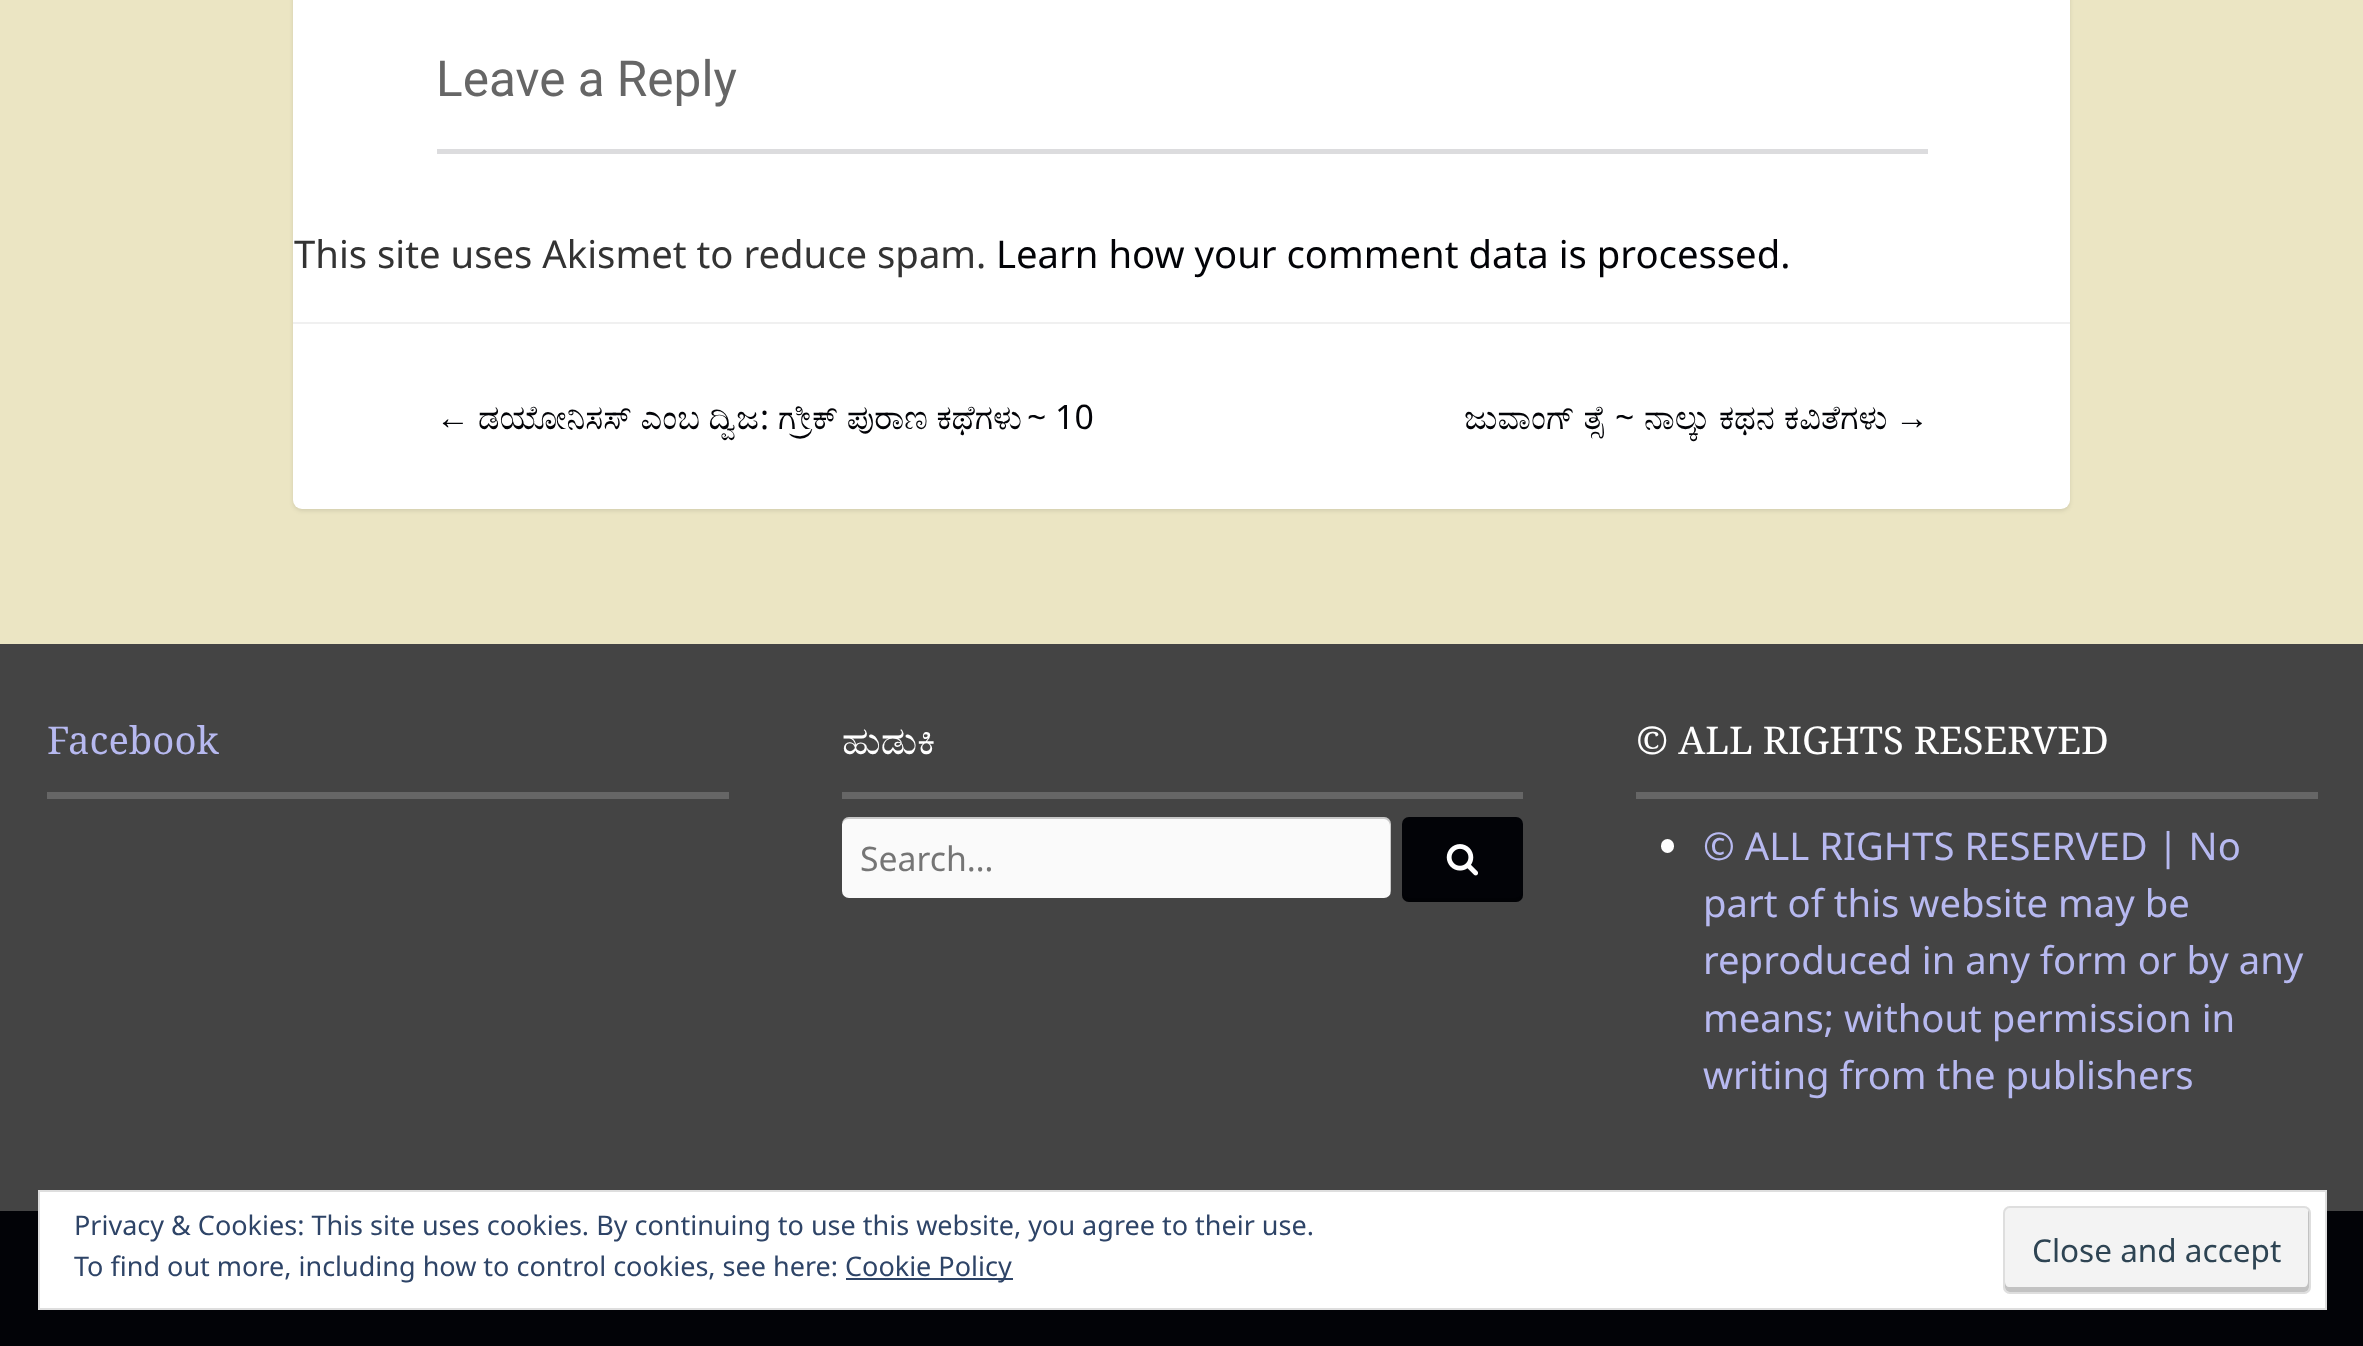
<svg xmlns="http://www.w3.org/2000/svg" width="2363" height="1346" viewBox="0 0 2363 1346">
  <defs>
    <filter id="blur1" x="-50%" y="-200%" width="200%" height="500%"><feGaussianBlur stdDeviation="2"/></filter>
  </defs>
  <rect width="100%" height="100%" fill="#ebe5c3"/>
  <rect x="293" y="-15" width="1777" height="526" rx="9" fill="#000000" fill-opacity="0.1" filter="url(#blur1)"/>
  <rect x="293" y="-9" width="1777" height="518" rx="9" fill="#ffffff"/>
  <text x="436" y="96" font-family="Roboto" font-size="49.5" fill="#666666">Leave a Reply</text>
  <rect x="437" y="149" width="1491" height="5" fill="#dcdcde"/>
  <text x="294" y="268" font-family="Noto Sans" font-size="38.25" fill="#333333">This site uses Akismet to reduce spam.</text>
  <text x="996" y="268" font-family="Noto Sans" font-size="38.25" fill="#020307">Learn how your comment data is processed.</text>
  <rect x="293" y="322" width="1777" height="2" fill="#f0f0f0"/>
  <text x="478" y="429" font-family="FreeSerif" font-size="33.75" fill="#020307">ಡಯೋನಿಸಸ್ ಎಂಬ ದ್ವಿಜ</text>
  <text x="760" y="429" font-family="Noto Sans" font-size="33.75" fill="#020307">:</text>
  <text x="778" y="429" font-family="FreeSerif" font-size="33.75" fill="#020307">ಗ್ರೀಕ್ ಪುರಾಣ ಕಥೆಗಳು</text>
  <text x="1027" y="429" font-family="Noto Sans" font-size="33.75" fill="#020307">~ 10</text>
  <text x="436" y="429" font-family="Liberation Sans" font-size="33.75" fill="#020307">←</text>
  <text x="1464" y="429" font-family="FreeSerif" font-size="33.75" fill="#020307">ಜುವಾಂಗ್ ತ್ಸೆ</text>
  <text x="1615" y="429" font-family="Noto Sans" font-size="33.75" fill="#020307">~</text>
  <text x="1644" y="429" font-family="FreeSerif" font-size="33.75" fill="#020307">ನಾಲ್ಕು ಕಥನ</text>
  <text x="1784" y="429" font-family="FreeSerif" font-size="33.75" fill="#020307">ಕವಿತೆಗಳು</text>
  <text x="1895" y="429" font-family="Liberation Sans" font-size="33.75" fill="#020307">→</text>
  <rect x="0" y="644" width="2363" height="567" fill="#444444"/>
  <rect x="47" y="792" width="682" height="7" fill="#666666"/>
  <text x="47" y="754" font-family="Noto Serif" font-size="38.25" fill="#b7b9f0">Facebook</text>
  <rect x="842" y="792" width="681" height="7" fill="#666666"/>
  <text x="842" y="754" font-family="FreeSerif" font-size="38.25" fill="#ffffff">ಹುಡುಕಿ</text>
  <rect x="842" y="817" width="549" height="81" rx="7" fill="#fafafa"/>
  <path d="M848 819H1384C1387 819 1390 822 1390 826V895C1391 894 1391 892 1391 891V824C1391 820 1388 817 1384 817H849C845 817 842 820 842 824V826C842 822 845 819 848 819Z" fill="#000000" fill-opacity="0.2"/>
  <text x="860" y="871" font-family="Noto Sans" font-size="33.75" fill="#757575">Search…</text>
  <rect x="1402" y="817" width="121" height="85" rx="7" fill="#020307"/>
  <path d="M1402 891V895C1402 899 1405 902 1409 902H1516C1520 902 1523 899 1523 895V891C1523 895 1520 898 1516 898H1408C1405 898 1402 895 1402 891Z" fill="#000000" fill-opacity="0.2"/>
  <image x="1446" y="844" width="32" height="32" href="img1.png"/>
  <rect x="1636" y="792" width="682" height="7" fill="#666666"/>
  <text x="1636" y="754" font-family="Noto Serif" font-size="38.25" fill="#ffffff">© ALL RIGHTS RESERVED</text>
  <rect x="1661" y="839" width="13" height="14" rx="6.5" fill="#ffffff"/>
  <text x="1703" y="860" font-family="Noto Sans" font-size="38.25" fill="#b7b9f0">© ALL RIGHTS RESERVED | No</text>
  <text x="1703" y="917" font-family="Noto Sans" font-size="38.25" fill="#b7b9f0">part of this website may be</text>
  <text x="1703" y="974" font-family="Noto Sans" font-size="38.25" fill="#b7b9f0">reproduced in any form or by any</text>
  <text x="1703" y="1032" font-family="Noto Sans" font-size="38.25" fill="#b7b9f0">means; without permission in</text>
  <text x="1703" y="1089" font-family="Noto Sans" font-size="38.25" fill="#b7b9f0">writing from the publishers</text>
  <rect x="0" y="1211" width="2363" height="135" fill="#020307"/>
  <rect x="39" y="1191" width="2287" height="118" fill="#ffffff" stroke="#dedede" stroke-width="2"/>
  <text x="74" y="1235" font-family="Noto Sans" font-size="27" fill="#2e4467">Privacy &amp; Cookies: This site uses cookies. By continuing to use this website, you agree to their use.</text>
  <text x="74" y="1276" font-family="Noto Sans" font-size="27" fill="#2e4467">To find out more, including how to control cookies, see here:</text>
  <rect x="846" y="1278" width="167" height="2" fill="#2e4467"/>
  <text x="845" y="1276" font-family="Noto Sans" font-size="27" fill="#2e4467">Cookie Policy</text>
  <rect x="2003" y="1206" width="308" height="88" rx="7" fill="#f3f3f3"/>
  <path d="M2005 1282V1287C2005 1290 2007 1292 2010 1292H2304C2307 1292 2309 1290 2309 1287V1213C2309 1212 2309 1211 2308 1210V1282C2308 1285 2306 1287 2304 1287H2009C2007 1287 2005 1285 2005 1282Z" fill="#c2c2c2"/>
  <rect x="2004" y="1207" width="306" height="86" rx="6" fill="none" stroke="#dedede" stroke-width="2"/>
  <text x="2032" y="1262" font-family="Noto Sans" font-size="31.5" fill="#2e4453">Close and accept</text>
</svg>
